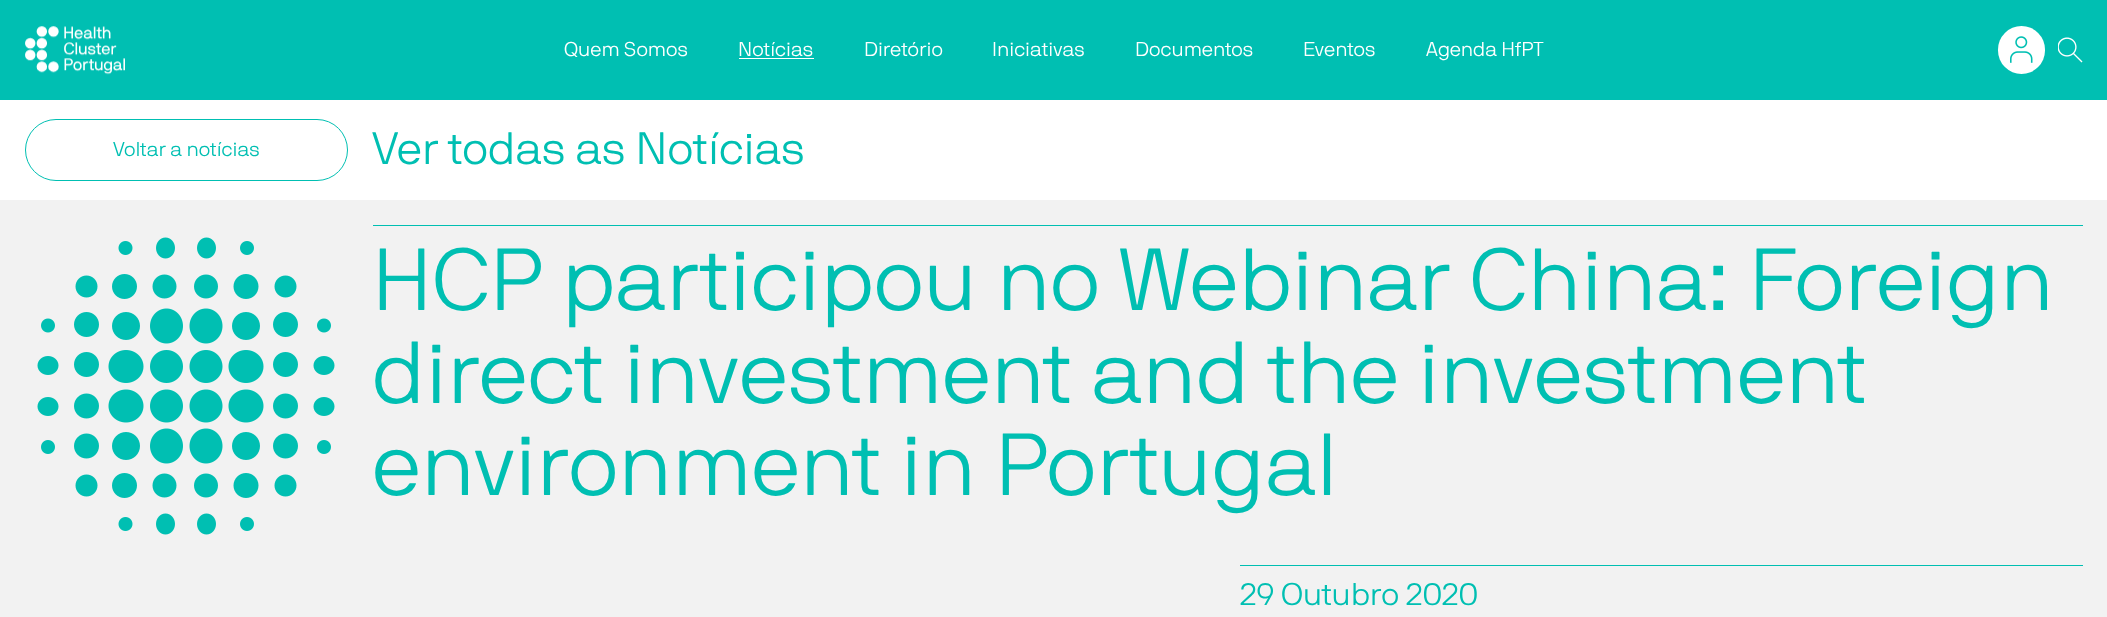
<svg xmlns="http://www.w3.org/2000/svg" width="2107" height="617" viewBox="0 0 2107 617">
  <rect width="100%" height="100%" fill="#f2f2f2"/>
  <rect x="0" y="0" width="2107" height="100" fill="#00bfb2"/>
  <image x="25" y="26" width="100" height="49" href="img1.png"/>
  <text x="564" y="56" font-family="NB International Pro" font-size="20" font-weight="300" fill="#ffffff">Quem Somos</text>
  <text x="738" y="56" font-family="NB International Pro" font-size="20" font-weight="300" fill="#ffffff">Notícias</text>
  <rect x="739" y="58" width="75" height="1" fill="#ffffff"/>
  <text x="864" y="56" font-family="NB International Pro" font-size="20" font-weight="300" fill="#ffffff">Diretório</text>
  <text x="992" y="56" font-family="NB International Pro" font-size="20" font-weight="300" fill="#ffffff">Iniciativas</text>
  <text x="1135" y="56" font-family="NB International Pro" font-size="20" font-weight="300" fill="#ffffff">Documentos</text>
  <text x="1303" y="56" font-family="NB International Pro" font-size="20" font-weight="300" fill="#ffffff">Eventos</text>
  <text x="1426" y="56" font-family="NB International Pro" font-size="20" font-weight="300" fill="#ffffff">Agenda HfPT</text>
  <rect x="1998" y="26" width="47" height="48" rx="23.5" fill="#ffffff"/>
  <image x="2010" y="36" width="23" height="27" href="img2.png"/>
  <image x="2058" y="37" width="25" height="26" href="img3.png"/>
  <rect x="0" y="100" width="2107" height="100" fill="#ffffff"/>
  <rect x="25.5" y="119.5" width="322" height="61" rx="30.5" fill="none" stroke="#00bfb2"/>
  <text x="113" y="156" font-family="NB International Pro" font-size="20" font-weight="300" fill="#00bfb2">Voltar a notícias</text>
  <text x="372" y="164" font-family="NB International Pro" font-size="45" font-weight="300" fill="#00bfb2">Ver todas as Notícias</text>
  <image x="37" y="237" width="298" height="298" href="img4.png"/>
  <rect x="373" y="225" width="1710" height="1" fill="#00bfb2"/>
  <text x="372" y="310" font-family="NB International Pro" font-size="87.5" font-weight="300" fill="#00bfb2">HCP participou no Webinar China: Foreign</text>
  <text x="372" y="403" font-family="NB International Pro" font-size="87.5" font-weight="300" fill="#00bfb2">direct investment and the investment</text>
  <text x="372" y="495" font-family="NB International Pro" font-size="87.5" font-weight="300" fill="#00bfb2">environment in Portugal</text>
  <rect x="1240" y="565" width="843" height="1" fill="#00bfb2"/>
  <text x="1240" y="605" font-family="NB International Pro" font-size="31.25" font-weight="300" fill="#00bfb2">29 Outubro 2020</text>
</svg>
